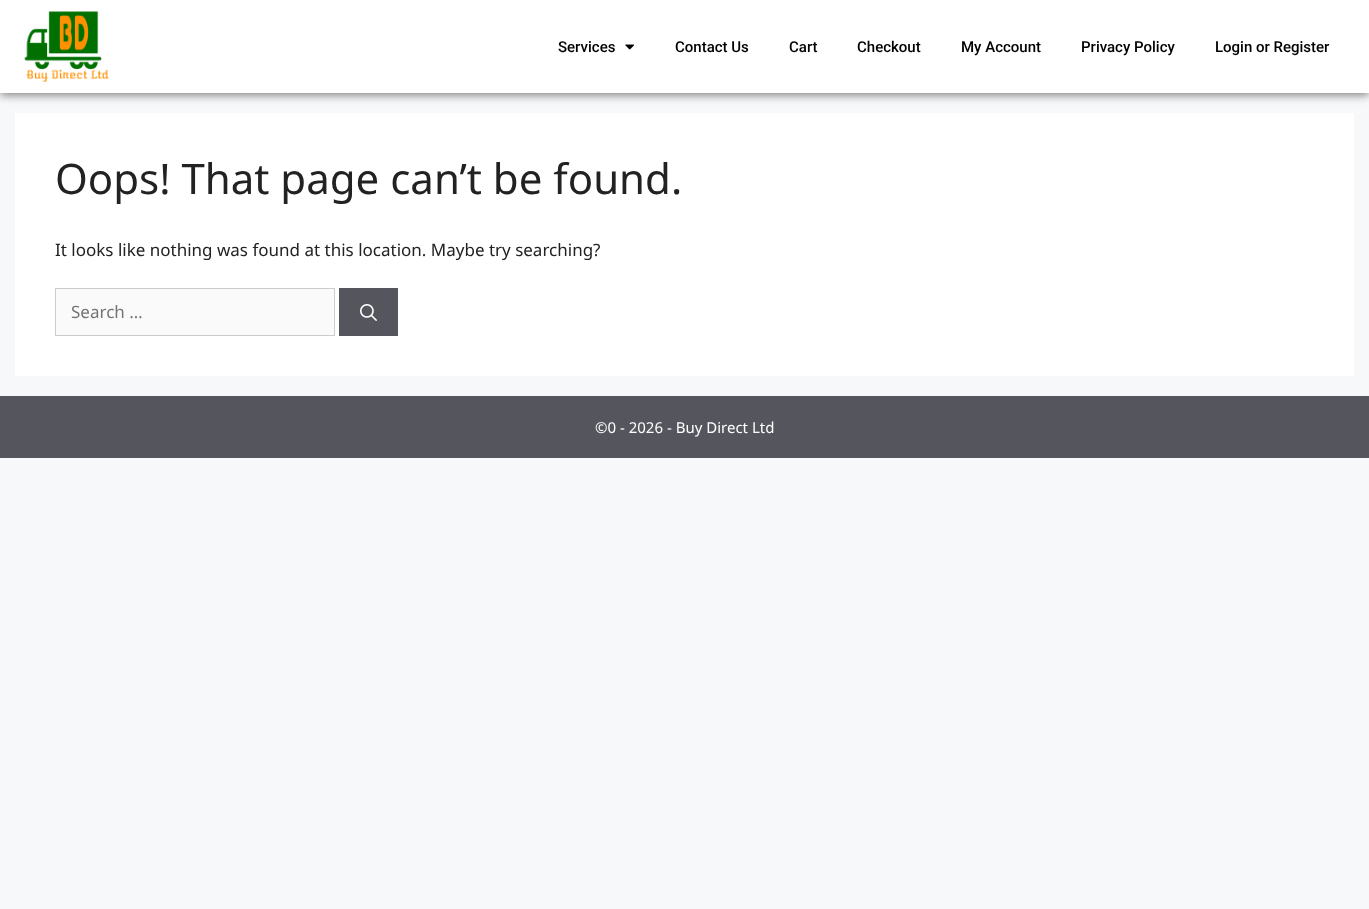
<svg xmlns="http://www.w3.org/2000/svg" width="1369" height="909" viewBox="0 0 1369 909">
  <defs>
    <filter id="blur1" x="-50%" y="-200%" width="200%" height="500%"><feGaussianBlur stdDeviation="5"/></filter>
  </defs>
  <rect width="100%" height="100%" fill="#f7f8f9"/>
  <rect x="0" y="2" width="1369" height="93" fill="#000000" fill-opacity="0.5" filter="url(#blur1)"/>
  <rect x="0" y="0" width="1369" height="93" fill="#ffffff"/>
  <image x="24" y="11" width="85" height="71" href="img1.png"/>
  <text x="558" y="52" font-family="Roboto" font-size="15" font-weight="500" fill="#000000">Services</text>
  <image x="625" y="44" width="9" height="6" href="img2.png"/>
  <text x="675" y="52" font-family="Roboto" font-size="15" font-weight="500" fill="#000000">Contact Us</text>
  <text x="789" y="52" font-family="Roboto" font-size="15" font-weight="500" fill="#000000">Cart</text>
  <text x="857" y="52" font-family="Roboto" font-size="15" font-weight="500" fill="#000000">Checkout</text>
  <text x="961" y="52" font-family="Roboto" font-size="15" font-weight="500" fill="#000000">My Account</text>
  <text x="1081" y="52" font-family="Roboto" font-size="15" font-weight="500" fill="#000000">Privacy Policy</text>
  <text x="1215" y="52" font-family="Roboto" font-size="15" font-weight="500" fill="#000000">Login or Register</text>
  <rect x="15" y="113" width="1339" height="263" fill="#ffffff"/>
  <text x="55" y="194" font-family="Noto Sans" font-size="42" fill="#222222">Oops! That page can’t be found.</text>
  <text x="55" y="256" font-family="Noto Sans" font-size="17" fill="#222222">It looks like nothing was found at this location. Maybe try searching?</text>
  <rect x="55.5" y="288.5" width="279" height="47" fill="#fafafa" stroke="#cccccc"/>
  <text x="71" y="318" font-family="Noto Sans" font-size="17" fill="#757575">Search …</text>
  <rect x="339" y="288" width="59" height="48" fill="#55555e"/>
  <image x="360" y="304" width="17" height="17" href="img3.png"/>
  <rect x="0" y="396" width="1369" height="62" fill="#55555e"/>
  <text x="595" y="433" font-family="Noto Sans" font-size="15" fill="#ffffff">©0 - 2026 - Buy Direct Ltd</text>
</svg>
